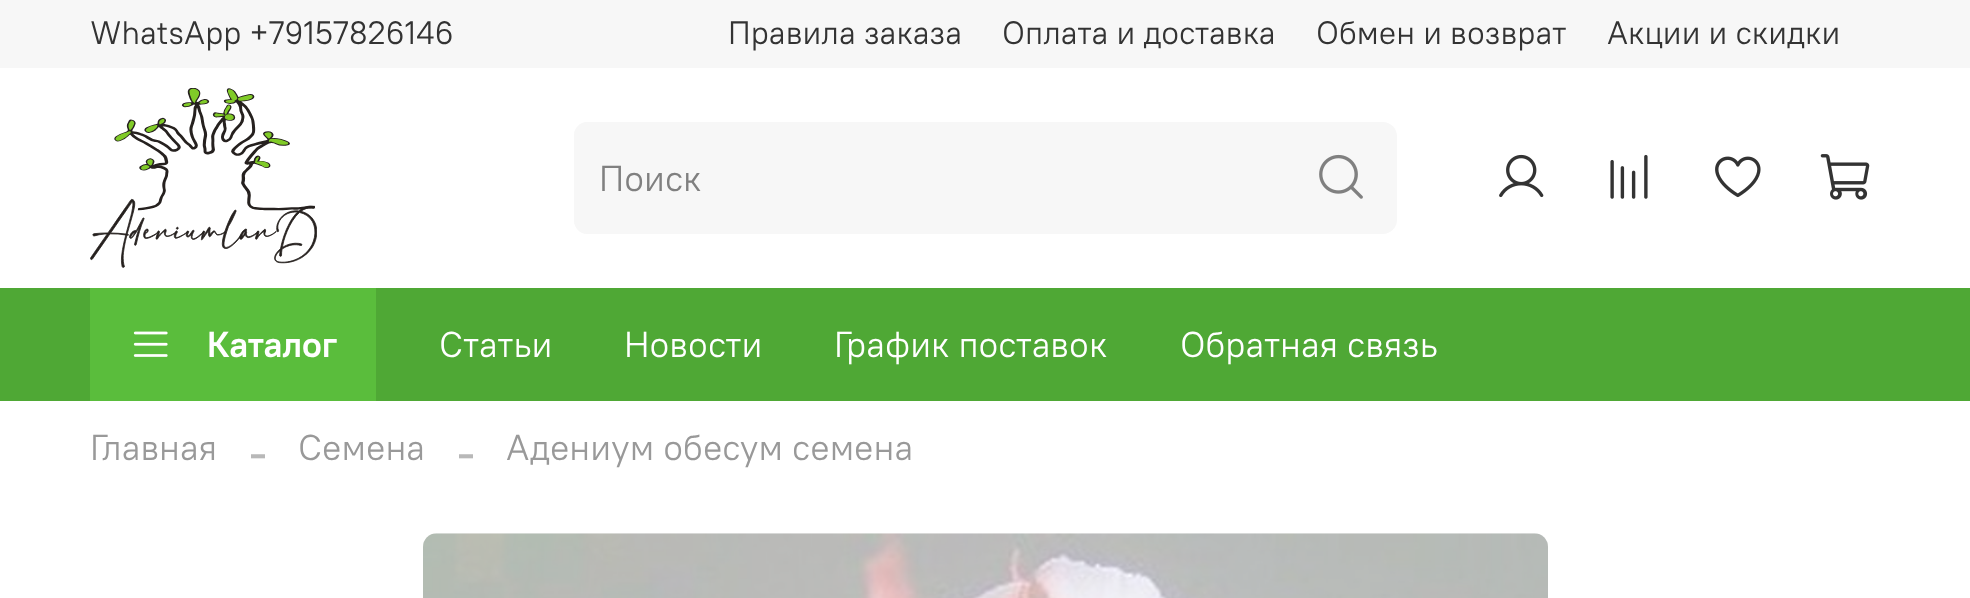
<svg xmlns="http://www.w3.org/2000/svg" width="1970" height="598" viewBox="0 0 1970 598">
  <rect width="100%" height="100%" fill="#ffffff"/>
  <rect x="0" y="0" width="1970" height="68" fill="#f7f7f7"/>
  <text x="90" y="44" font-family="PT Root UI" font-size="32.4" fill="#333333">WhatsApp +79157826146</text>
  <text x="728" y="44" font-family="PT Root UI" font-size="32.4" fill="#333333">Правила заказа</text>
  <text x="1002" y="44" font-family="PT Root UI" font-size="32.4" fill="#333333">Оплата и доставка</text>
  <text x="1316" y="44" font-family="PT Root UI" font-size="32.4" fill="#333333">Обмен и возврат</text>
  <text x="1607" y="44" font-family="PT Root UI" font-size="32.4" fill="#333333">Акции и скидки</text>
  <image x="90" y="88" width="227" height="180" href="img1.png"/>
  <path d="M588 122H1285V234H588C580.5 234 574 227.5 574 220V136C574 128.5 580.5 122 588 122Z" fill="#f7f7f7"/>
  <path d="M587 122H1285V234H587C580 234 574 228 574 220V135C574 128 580 122 587 122ZM587 124H1285V232H587C581 232 576 227 576 220V135C576 129 581 124 587 124Z" fill="#f7f7f7" fill-rule="evenodd"/>
  <text x="599" y="191" font-family="PT Root UI" font-size="36" fill="#808080">Поиск</text>
  <path d="M1285 122H1383C1390.5 122 1397 128.5 1397 136V220C1397 227.5 1390.5 234 1383 234H1285Z" fill="#f7f7f7"/>
  <image x="1319" y="154" width="44" height="45" href="img2.png"/>
  <image x="1499" y="154" width="45" height="44" href="img3.png"/>
  <image x="1610" y="154" width="38" height="45" href="img4.png"/>
  <image x="1715" y="156" width="46" height="42" href="img5.png"/>
  <image x="1820" y="154" width="50" height="46" href="img6.png"/>
  <rect x="0" y="288" width="1970" height="113" fill="#4fa835"/>
  <rect x="90" y="288" width="286" height="113" fill="#5abd3c"/>
  <image x="133" y="331" width="35" height="26" href="img7.png"/>
  <text x="207" y="357" font-family="PT Root UI" font-size="36" font-weight="bold" fill="#ffffff">Каталог</text>
  <text x="439" y="357" font-family="PT Root UI" font-size="36" fill="#ffffff">Статьи</text>
  <text x="624" y="357" font-family="PT Root UI" font-size="36" fill="#ffffff">Новости</text>
  <text x="834" y="357" font-family="PT Root UI" font-size="36" fill="#ffffff">График поставок</text>
  <text x="1180" y="357" font-family="PT Root UI" font-size="36" fill="#ffffff">Обратная связь</text>
  <text x="90" y="460" font-family="PT Root UI" font-size="36" fill="#999999">Главная</text>
  <text x="249" y="469" font-family="Liberation Serif" font-size="54" fill="#b8b8b8">-</text>
  <text x="298" y="460" font-family="PT Root UI" font-size="36" fill="#999999">Семена</text>
  <text x="457" y="469" font-family="Liberation Serif" font-size="54" fill="#b8b8b8">-</text>
  <text x="506" y="460" font-family="PT Root UI" font-size="36" fill="#999999">Адениум обесум семена</text>
  <image x="423" y="533" width="1125" height="65" href="img8.png"/>
</svg>
